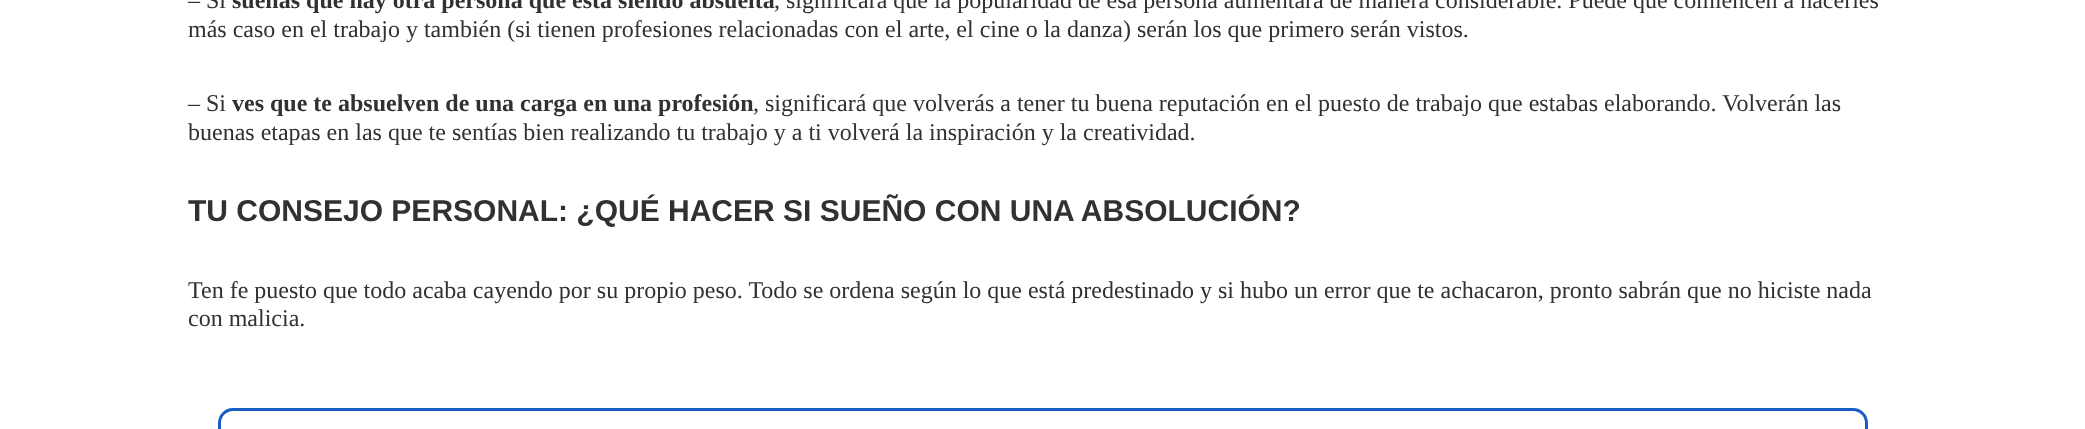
<svg xmlns="http://www.w3.org/2000/svg" width="2085" height="429" viewBox="0 0 2085 429">
  <rect width="100%" height="100%" fill="#ffffff"/>
  <text x="188" y="8" font-family="Liberation Serif" font-size="24" fill="#313131">– Si</text>
  <text x="232" y="8" font-family="Liberation Serif" font-size="24" font-weight="bold" fill="#313131">sueñas que hay otra persona que está siendo absuelta</text>
  <text x="774" y="8" font-family="Liberation Serif" font-size="24" fill="#313131">, significará que la popularidad de esa persona aumentará de manera considerable. Puede que comiencen a hacerles</text>
  <text x="188" y="37" font-family="Liberation Serif" font-size="24" fill="#313131">más caso en el trabajo y también (si tienen profesiones relacionadas con el arte, el cine o la danza) serán los que primero serán vistos.</text>
  <text x="188" y="111" font-family="Liberation Serif" font-size="24" fill="#313131">– Si</text>
  <text x="232" y="111" font-family="Liberation Serif" font-size="24" font-weight="bold" fill="#313131">ves que te absuelven de una carga en una profesión</text>
  <text x="753" y="111" font-family="Liberation Serif" font-size="24" fill="#313131">, significará que volverás a tener tu buena reputación en el puesto de trabajo que estabas elaborando. Volverán las</text>
  <text x="188" y="140" font-family="Liberation Serif" font-size="24" fill="#313131">buenas etapas en las que te sentías bien realizando tu trabajo y a ti volverá la inspiración y la creatividad.</text>
  <text x="188" y="221" font-family="Liberation Sans" font-size="30" font-weight="bold" fill="#313131">TU CONSEJO PERSONAL: ¿QUÉ HACER SI SUEÑO CON UNA ABSOLUCIÓN?</text>
  <text x="188" y="298" font-family="Liberation Serif" font-size="24" fill="#313131">Ten fe puesto que todo acaba cayendo por su propio peso. Todo se ordena según lo que está predestinado y si hubo un error que te achacaron, pronto sabrán que no hiciste nada</text>
  <text x="188" y="326" font-family="Liberation Serif" font-size="24" fill="#313131">con malicia.</text>
  <rect x="219.5" y="409.5" width="1647" height="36" rx="13.5" fill="none" stroke="#185dc5" stroke-width="3"/>
</svg>
